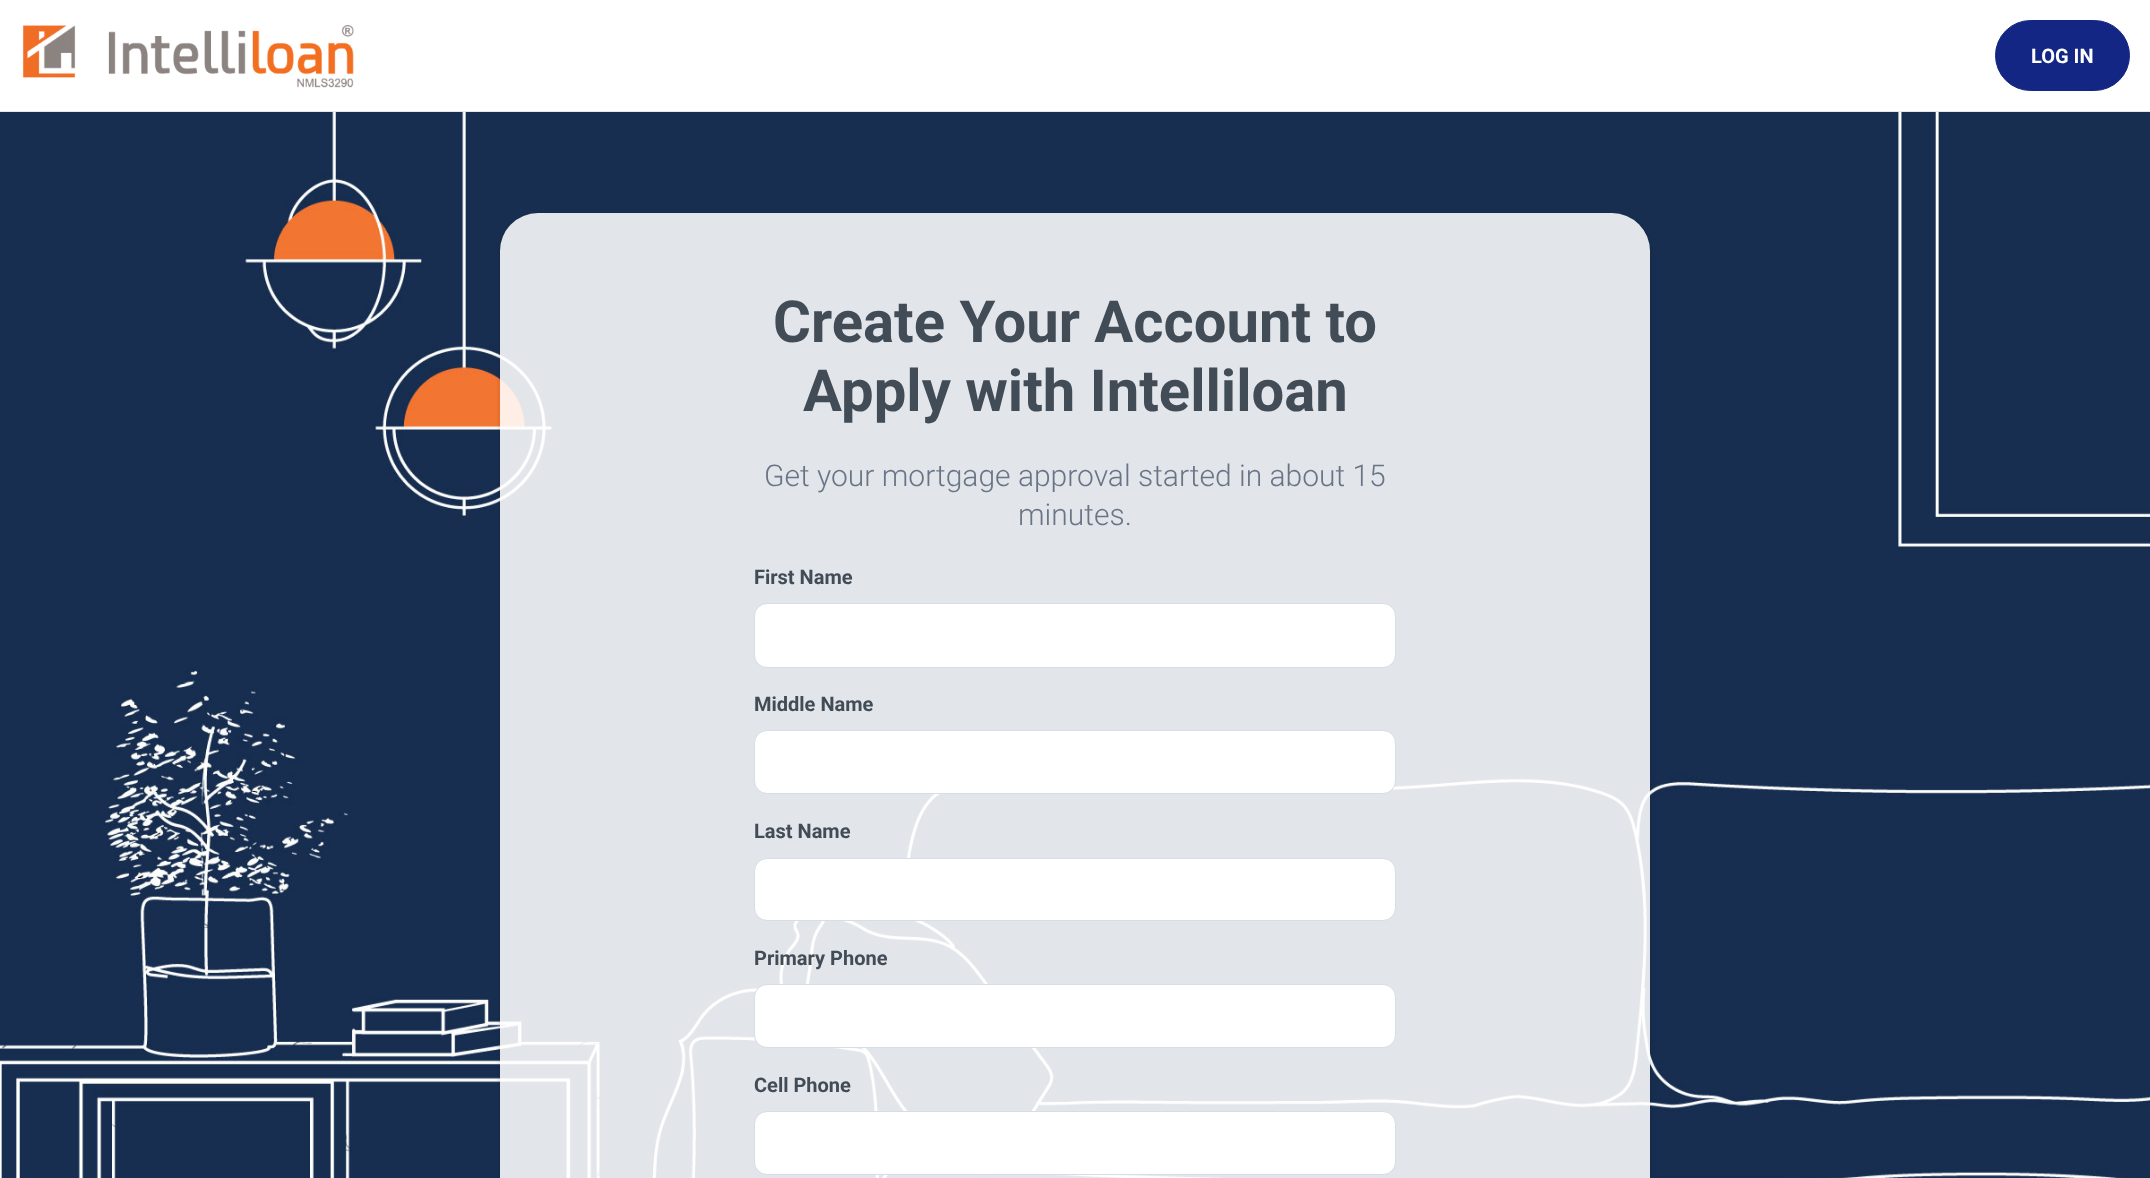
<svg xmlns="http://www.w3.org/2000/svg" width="2150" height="1178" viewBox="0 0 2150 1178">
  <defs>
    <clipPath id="clip1"><path d="M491 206H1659V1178H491ZM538 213H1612C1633 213 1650 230 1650 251V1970C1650 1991 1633 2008 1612 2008H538C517 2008 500 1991 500 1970V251C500 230 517 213 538 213Z" clip-rule="evenodd"/></clipPath>
    <filter id="blur1" x="-50%" y="-200%" width="200%" height="500%"><feGaussianBlur stdDeviation="2.5"/></filter>
  </defs>
  <rect width="100%" height="100%" fill="#ffffff"/>
  <image x="0" y="112" width="2150" height="1066" href="img1.png"/>
  <rect x="0" y="111" width="2150" height="1" fill="#e7e7e7"/>
  <image x="22" y="25" width="332" height="63" href="img2.png"/>
  <rect x="1995.5" y="20.5" width="134" height="70" rx="35" fill="#142684" stroke="#142684"/>
  <text x="2031" y="63" font-family="Roboto" font-size="20" font-weight="bold" fill="#ffffff">LOG IN</text>
  <g clip-path="url(#clip1)">
    <rect x="500" y="215" width="1150" height="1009" rx="38" fill="#000000" fill-opacity="0.15" filter="url(#blur1)"/>
  </g>
  <rect x="500" y="213" width="1150" height="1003" rx="38" fill="#ffffff" fill-opacity="0.88"/>
  <text x="773" y="342" font-family="Roboto" font-size="58" font-weight="bold" fill="#424c57">Create Your Account to</text>
  <text x="803" y="411" font-family="Roboto" font-size="58" font-weight="bold" fill="#424c57">Apply with Intelliloan</text>
  <text x="764" y="486" font-family="Roboto" font-size="30" font-weight="300" fill="#697586">Get your mortgage approval started in about 15</text>
  <text x="1018" y="525" font-family="Roboto" font-size="30" font-weight="300" fill="#697586">minutes.</text>
  <text x="754" y="584" font-family="Roboto" font-size="20" font-weight="bold" fill="#424c57">First Name</text>
  <rect x="754.5" y="603.5" width="641" height="64" rx="12.5" fill="#ffffff" stroke="#d4dee7"/>
  <text x="754" y="711" font-family="Roboto" font-size="20" font-weight="bold" fill="#424c57">Middle Name</text>
  <rect x="754.5" y="730.5" width="641" height="63" rx="12.5" fill="#ffffff" stroke="#d4dee7"/>
  <text x="754" y="838" font-family="Roboto" font-size="20" font-weight="bold" fill="#424c57">Last Name</text>
  <rect x="754.5" y="858.5" width="641" height="62" rx="12.5" fill="#ffffff" stroke="#d4dee7"/>
  <text x="754" y="965" font-family="Roboto" font-size="20" font-weight="bold" fill="#424c57">Primary Phone</text>
  <rect x="754.5" y="984.5" width="641" height="63" rx="12.5" fill="#ffffff" stroke="#d4dee7"/>
  <text x="754" y="1092" font-family="Roboto" font-size="20" font-weight="bold" fill="#424c57">Cell Phone</text>
  <rect x="754.5" y="1111.5" width="641" height="63" rx="12.5" fill="#ffffff" stroke="#d4dee7"/>
</svg>
